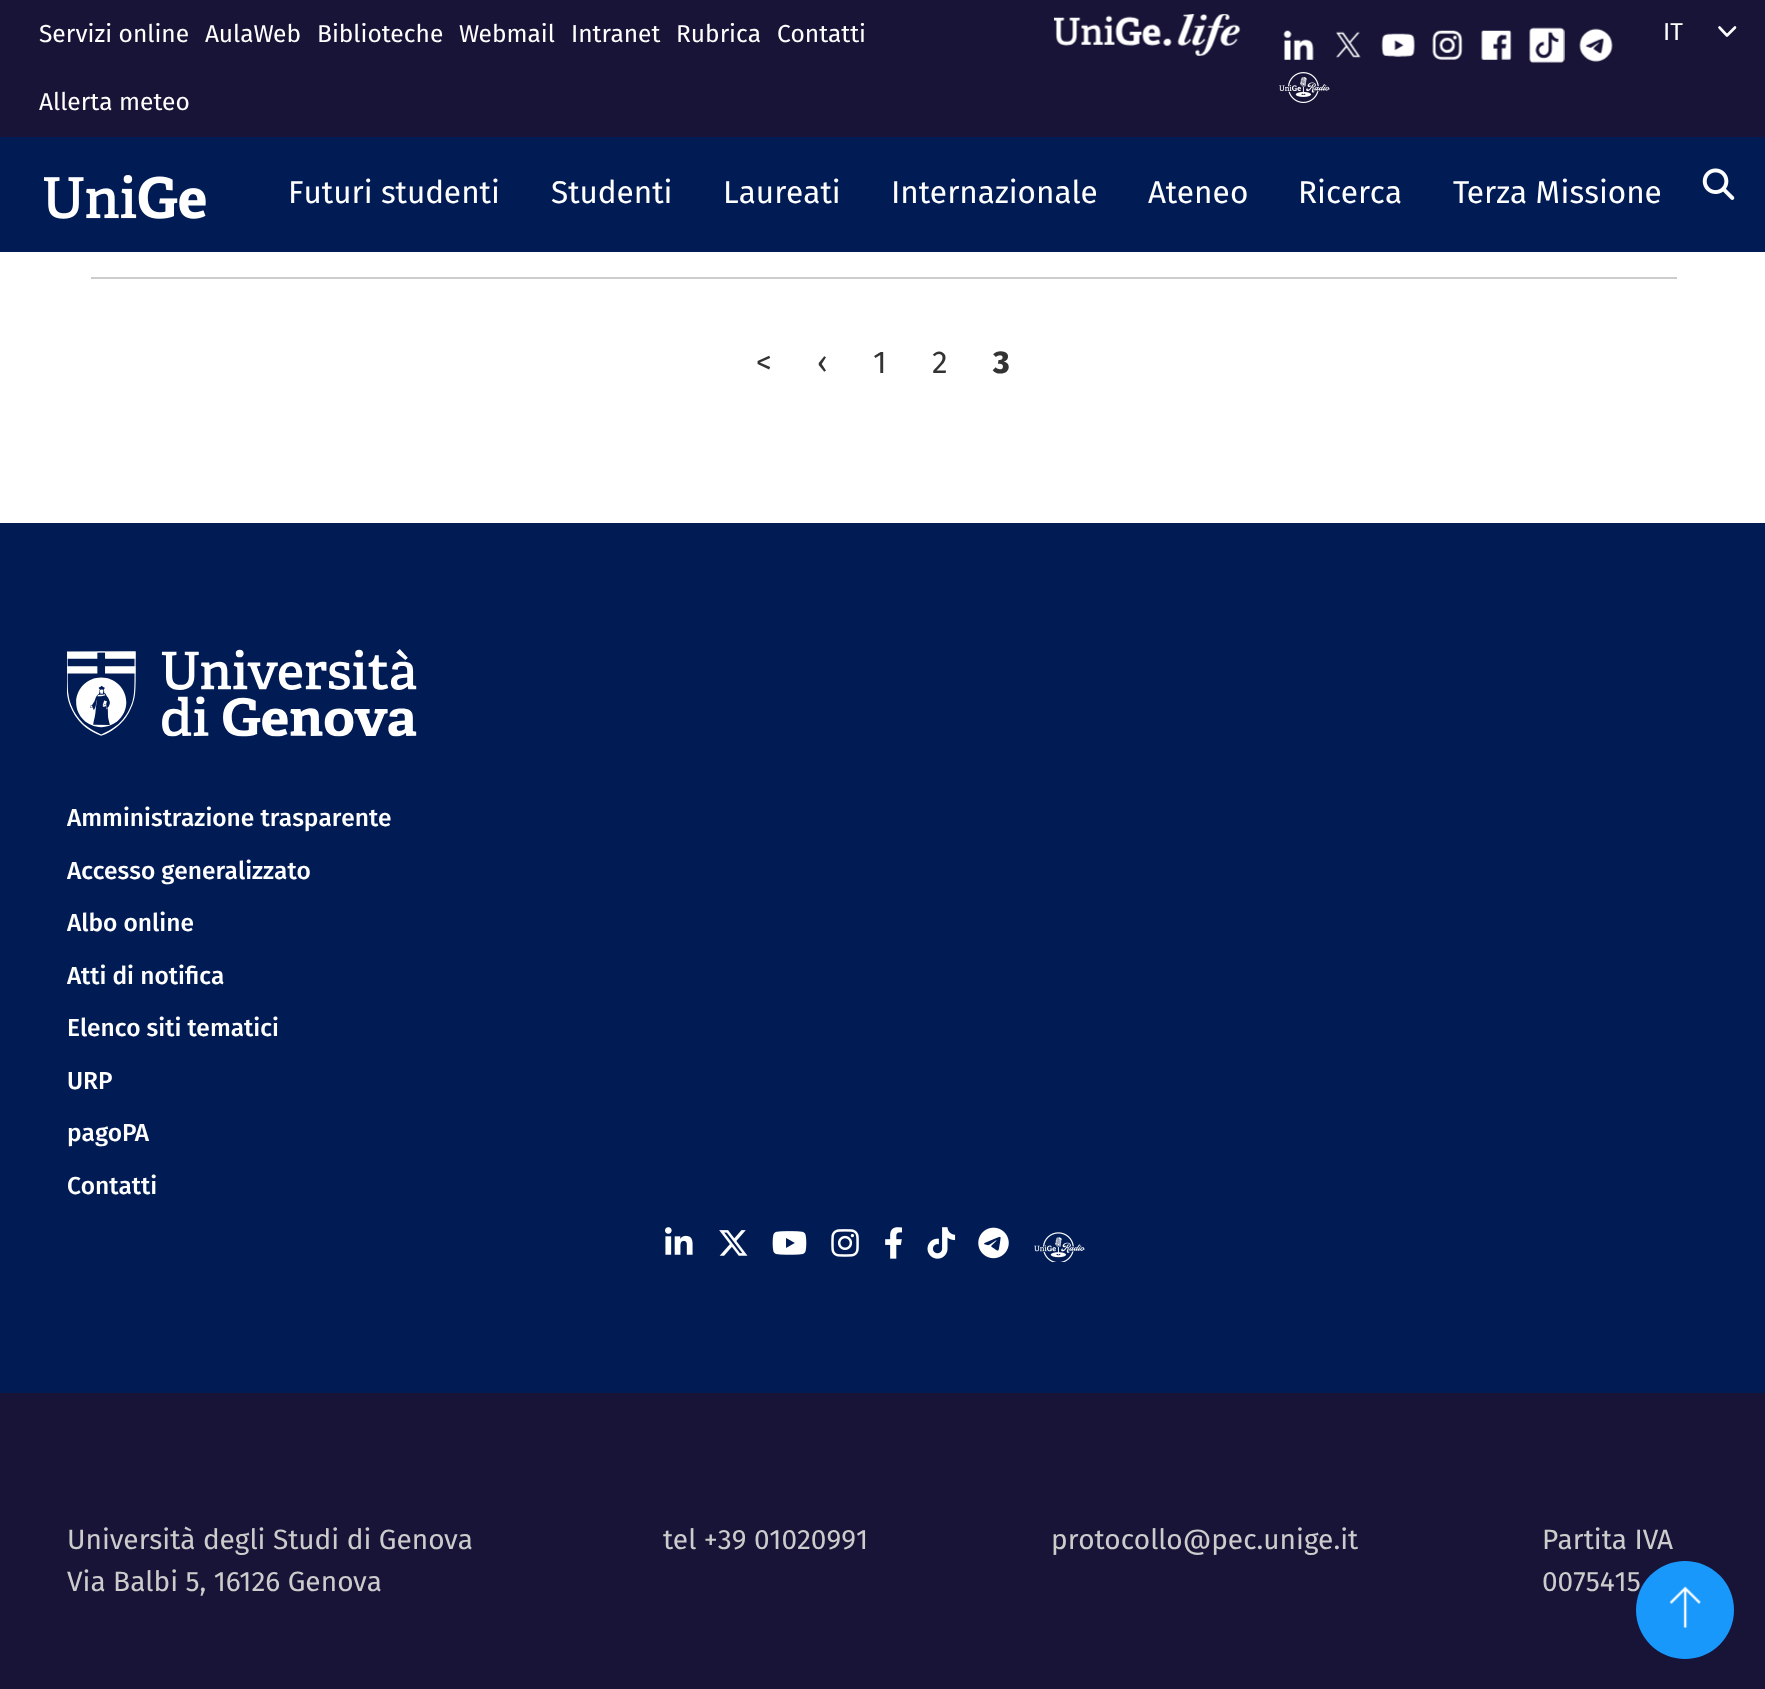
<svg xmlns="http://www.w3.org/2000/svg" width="1765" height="1689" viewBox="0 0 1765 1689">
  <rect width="100%" height="100%" fill="#ffffff"/>
  <rect x="0" y="0" width="1765" height="137" fill="#171437"/>
  <text x="39" y="42" font-family="Fira Sans" font-size="24.5" fill="#ffffff">Servizi online</text>
  <text x="205" y="42" font-family="Fira Sans" font-size="24.5" fill="#ffffff">AulaWeb</text>
  <text x="317" y="42" font-family="Fira Sans" font-size="24.5" fill="#ffffff">Biblioteche</text>
  <text x="459" y="42" font-family="Fira Sans" font-size="24.5" fill="#ffffff">Webmail</text>
  <text x="571" y="42" font-family="Fira Sans" font-size="24.5" fill="#ffffff">Intranet</text>
  <text x="676" y="42" font-family="Fira Sans" font-size="24.5" fill="#ffffff">Rubrica</text>
  <text x="777" y="42" font-family="Fira Sans" font-size="24.5" fill="#ffffff">Contatti</text>
  <text x="39" y="110" font-family="Fira Sans" font-size="24.5" fill="#ffffff">Allerta meteo</text>
  <image x="1054" y="14" width="187" height="42" href="img1.png"/>
  <image x="1283" y="30" width="31" height="30" href="img2.png"/>
  <image x="1336" y="31" width="25" height="27" href="img3.png"/>
  <image x="1381" y="33" width="34" height="24" href="img4.png"/>
  <image x="1432" y="30" width="31" height="30" href="img5.png"/>
  <image x="1481" y="30" width="31" height="30" href="img6.png"/>
  <image x="1529" y="27" width="36" height="36" href="img7.png"/>
  <image x="1579" y="28" width="34" height="34" href="img8.png"/>
  <image x="1279" y="72" width="51" height="31" href="img9.png"/>
  <path d="M1719.5 27.5L1727 35.5L1735 27.5" fill="none" stroke="#ffffff" stroke-width="2.6" stroke-linecap="round" stroke-linejoin="round"/>
  <text x="1663" y="40" font-family="Fira Sans" font-size="24.5" fill="#ffffff">IT</text>
  <rect x="0" y="137" width="1765" height="115" fill="#011c55"/>
  <image x="44" y="175" width="162" height="44" href="img10.png"/>
  <text x="288" y="203" font-family="Fira Sans" font-size="31.5" fill="#ffffff">Futuri studenti</text>
  <text x="551" y="203" font-family="Fira Sans" font-size="31.5" fill="#ffffff">Studenti</text>
  <text x="723" y="203" font-family="Fira Sans" font-size="31.5" fill="#ffffff">Laureati</text>
  <text x="891" y="203" font-family="Fira Sans" font-size="31.5" fill="#ffffff">Internazionale</text>
  <text x="1148" y="203" font-family="Fira Sans" font-size="31.5" fill="#ffffff">Ateneo</text>
  <text x="1298" y="203" font-family="Fira Sans" font-size="31.5" fill="#ffffff">Ricerca</text>
  <text x="1453" y="203" font-family="Fira Sans" font-size="31.5" fill="#ffffff">Terza Missione</text>
  <image x="1702" y="168" width="33" height="32" href="img11.png"/>
  <rect x="91" y="277" width="1586" height="2" fill="#cccccc"/>
  <text x="756" y="373" font-family="Fira Sans" font-size="31.5" fill="#333333">&lt;</text>
  <text x="817" y="373" font-family="Fira Sans" font-size="31.5" fill="#333333">‹</text>
  <text x="873" y="373" font-family="Fira Sans" font-size="31.5" fill="#333333">1</text>
  <text x="932" y="373" font-family="Fira Sans" font-size="31.5" fill="#333333">2</text>
  <text x="993" y="373" font-family="Fira Sans" font-size="31.5" font-weight="800" fill="#333333">3</text>
  <rect x="0" y="523" width="1765" height="870" fill="#011c55"/>
  <image x="67" y="649" width="350" height="88" href="img12.png"/>
  <text x="67" y="826" font-family="Fira Sans" font-size="24.5" font-weight="500" fill="#ffffff">Amministrazione trasparente</text>
  <text x="67" y="879" font-family="Fira Sans" font-size="24.5" font-weight="500" fill="#ffffff">Accesso generalizzato</text>
  <text x="67" y="931" font-family="Fira Sans" font-size="24.5" font-weight="500" fill="#ffffff">Albo online</text>
  <text x="67" y="984" font-family="Fira Sans" font-size="24.5" font-weight="500" fill="#ffffff">Atti di notifica</text>
  <text x="67" y="1036" font-family="Fira Sans" font-size="24.5" font-weight="500" fill="#ffffff">Elenco siti tematici</text>
  <text x="67" y="1089" font-family="Fira Sans" font-size="24.5" font-weight="500" fill="#ffffff">URP</text>
  <text x="67" y="1141" font-family="Fira Sans" font-size="24.5" font-weight="500" fill="#ffffff">pagoPA</text>
  <text x="67" y="1194" font-family="Fira Sans" font-size="24.5" font-weight="500" fill="#ffffff">Contatti</text>
  <image x="665" y="1227" width="28" height="28" href="img13.png"/>
  <image x="719" y="1230" width="29" height="26" href="img14.png"/>
  <image x="772" y="1231" width="35" height="24" href="img15.png"/>
  <image x="831" y="1229" width="28" height="28" href="img16.png"/>
  <image x="885" y="1227" width="18" height="32" href="img17.png"/>
  <image x="927" y="1227" width="29" height="32" href="img18.png"/>
  <image x="978" y="1227" width="31" height="32" href="img19.png"/>
  <image x="1034" y="1232" width="51" height="30" href="img20.png"/>
  <rect x="0" y="1393" width="1765" height="296" fill="#171437"/>
  <text x="67" y="1549" font-family="Fira Sans" font-size="28" fill="#cccccc">Università degli Studi di Genova</text>
  <text x="67" y="1591" font-family="Fira Sans" font-size="28" fill="#cccccc">Via Balbi 5, 16126 Genova</text>
  <text x="663" y="1549" font-family="Fira Sans" font-size="28" fill="#cccccc">tel +39 01020991</text>
  <text x="1051" y="1549" font-family="Fira Sans" font-size="28" fill="#cccccc">protocollo@pec.unige.it</text>
  <text x="1542" y="1549" font-family="Fira Sans" font-size="28" fill="#cccccc">Partita IVA</text>
  <text x="1542" y="1591" font-family="Fira Sans" font-size="28" fill="#cccccc">0075415</text>
  <circle cx="1685" cy="1610" r="49" fill="#1998fc"/>
  <image x="1669" y="1586" width="32" height="42" href="img21.png"/>
</svg>
